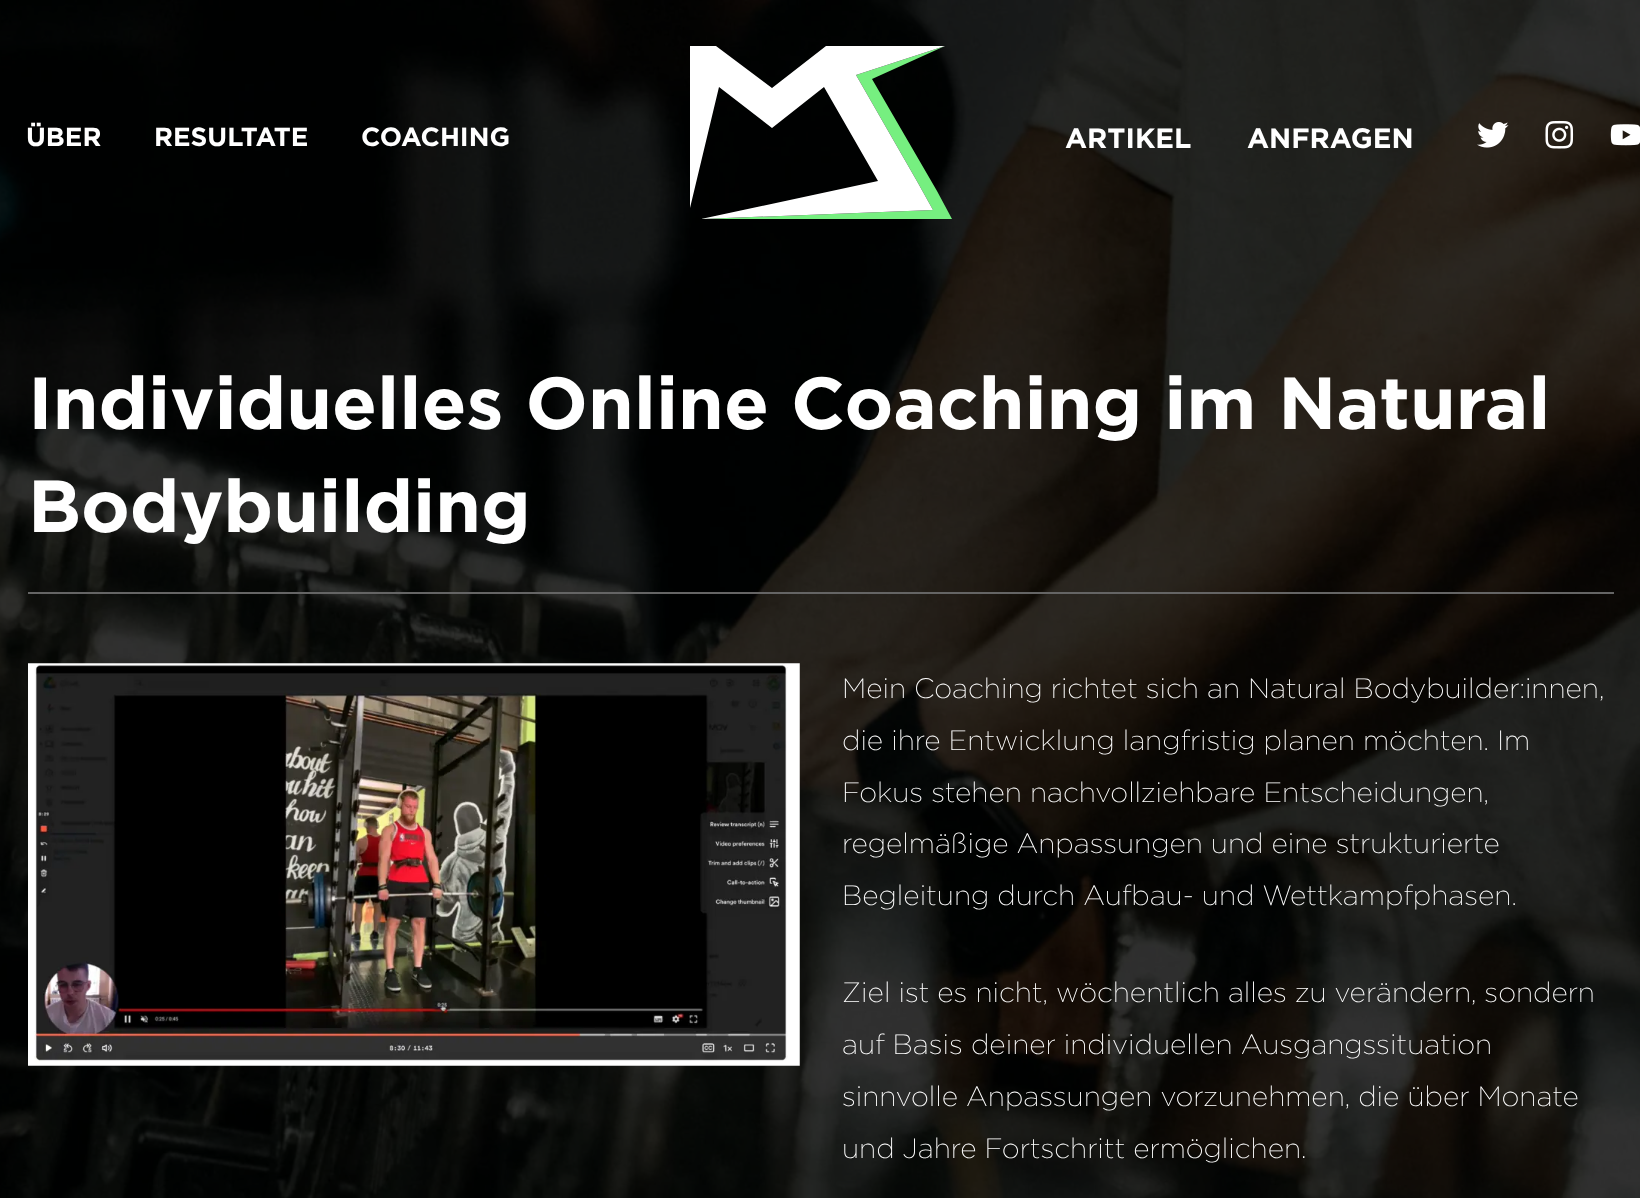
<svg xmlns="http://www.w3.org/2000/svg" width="1640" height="1198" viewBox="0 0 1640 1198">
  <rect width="100%" height="100%" fill="#ffffff"/>
  <image x="0" y="0" width="1640" height="1198" href="img4.png"/>
  <text x="26" y="146" font-family="Gotham" font-size="26.25" font-weight="bold" fill="#ffffff">ÜBER</text>
  <text x="154" y="146" font-family="Gotham" font-size="26.25" font-weight="bold" fill="#ffffff">RESULTATE</text>
  <text x="361" y="146" font-family="Gotham" font-size="26.25" font-weight="bold" fill="#ffffff">COACHING</text>
  <path d="M945 46L872 79L937 191L952 219H701L933 210L918 183L856 75Z" fill="#76ef80" fill-rule="evenodd"/>
  <path d="M945 46L856 75L918 183L933 210L701 219L878 181L824 87L772 128L719 87L690 208V46H716L772 88L826 46Z" fill="#ffffff" fill-rule="evenodd"/>
  <text x="1065" y="148" font-family="Gotham" font-size="28" font-weight="bold" fill="#ffffff">ARTIKEL</text>
  <text x="1247" y="148" font-family="Gotham" font-size="28" font-weight="bold" fill="#ffffff">ANFRAGEN</text>
  <image x="1477" y="122" width="32" height="26" href="img1.png"/>
  <image x="1545" y="120" width="29" height="29" href="img2.png"/>
  <image x="1610" y="124" width="30" height="22" href="img3.png"/>
  <text x="28" y="429" font-family="Gotham" font-size="73.5" font-weight="bold" fill="#ffffff">Individuelles Online Coaching im Natural</text>
  <text x="28" y="532" font-family="Gotham" font-size="73.5" font-weight="bold" fill="#ffffff">Bodybuilding</text>
  <rect x="28" y="592" width="1586" height="2" fill="#656565"/>
  <image x="28" y="663" width="772" height="403" href="img5.png"/>
  <text x="842" y="698" font-family="Gotham" font-size="28" font-weight="300" fill="#ffffff">Mein Coaching richtet sich an Natural Bodybuilder:innen,</text>
  <text x="842" y="750" font-family="Gotham" font-size="28" font-weight="300" fill="#ffffff">die ihre Entwicklung langfristig planen möchten. Im</text>
  <text x="842" y="802" font-family="Gotham" font-size="28" font-weight="300" fill="#ffffff">Fokus stehen nachvollziehbare Entscheidungen,</text>
  <text x="842" y="853" font-family="Gotham" font-size="28" font-weight="300" fill="#ffffff">regelmäßige Anpassungen und eine strukturierte</text>
  <text x="842" y="905" font-family="Gotham" font-size="28" font-weight="300" fill="#ffffff">Begleitung durch Aufbau- und Wettkampfphasen.</text>
  <text x="842" y="1002" font-family="Gotham" font-size="28" font-weight="300" fill="#ffffff">Ziel ist es nicht, wöchentlich alles zu verändern, sondern</text>
  <text x="842" y="1054" font-family="Gotham" font-size="28" font-weight="300" fill="#ffffff">auf Basis deiner individuellen Ausgangssituation</text>
  <text x="842" y="1106" font-family="Gotham" font-size="28" font-weight="300" fill="#ffffff">sinnvolle Anpassungen vorzunehmen, die über Monate</text>
  <text x="842" y="1158" font-family="Gotham" font-size="28" font-weight="300" fill="#ffffff">und Jahre Fortschritt ermöglichen.</text>
</svg>
